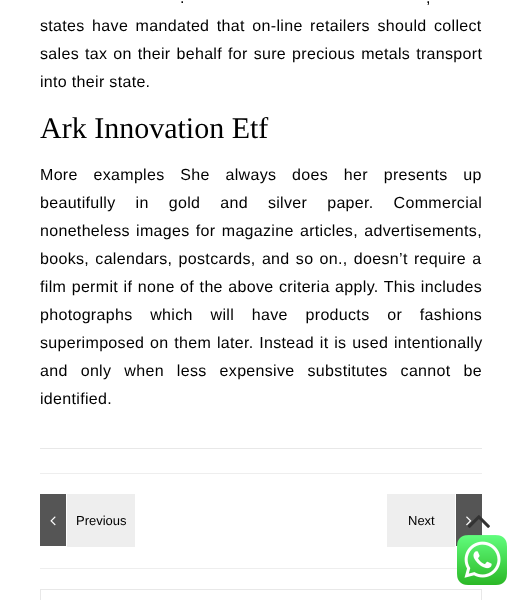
<svg xmlns="http://www.w3.org/2000/svg" width="522" height="600" viewBox="0 0 522 600">
  <rect width="100%" height="100%" fill="#ffffff"/>
  <rect x="40" y="473" width="442" height="1" fill="#eeeeee"/>
  <text x="180" y="3" word-spacing="6" font-family="Liberation Sans" font-size="16" letter-spacing="0.32" fill="#010101">.</text>
  <text x="426" y="3" word-spacing="6" font-family="Liberation Sans" font-size="16" letter-spacing="0.32" fill="#010101">,</text>
  <text x="40" y="31" word-spacing="2.75" font-family="Liberation Sans" font-size="16" letter-spacing="0.32" fill="#010101">states have mandated that on-line retailers should collect</text>
  <text x="40" y="59" word-spacing="1.25" font-family="Liberation Sans" font-size="16" letter-spacing="0.32" fill="#010101">sales tax on their behalf for sure precious metals transport</text>
  <text x="40" y="87" font-family="Liberation Sans" font-size="16" letter-spacing="0.32" fill="#010101">into their state.</text>
  <text x="40" y="138" font-family="Liberation Serif" font-size="30" fill="#010101">Ark Innovation Etf</text>
  <text x="40" y="180" word-spacing="11" font-family="Liberation Sans" font-size="16" letter-spacing="0.32" fill="#010101">More examples She always does her presents up</text>
  <text x="40" y="208" word-spacing="15.25" font-family="Liberation Sans" font-size="16" letter-spacing="0.32" fill="#010101">beautifully in gold and silver paper. Commercial</text>
  <text x="40" y="236" word-spacing="1.5" font-family="Liberation Sans" font-size="16" letter-spacing="0.32" fill="#010101">nonetheless images for magazine articles, advertisements,</text>
  <text x="40" y="264" word-spacing="1.5" font-family="Liberation Sans" font-size="16" letter-spacing="0.32" fill="#010101">books, calendars, postcards, and so on., doesn’t require a</text>
  <text x="40" y="292" word-spacing="0.75" font-family="Liberation Sans" font-size="16" letter-spacing="0.32" fill="#010101">film permit if none of the above criteria apply. This includes</text>
  <text x="40" y="320" word-spacing="13" font-family="Liberation Sans" font-size="16" letter-spacing="0.32" fill="#010101">photographs which will have products or fashions</text>
  <text x="40" y="348" word-spacing="1" font-family="Liberation Sans" font-size="16" letter-spacing="0.32" fill="#010101">superimposed on them later. Instead it is used intentionally</text>
  <text x="40" y="376" word-spacing="8.25" font-family="Liberation Sans" font-size="16" letter-spacing="0.32" fill="#010101">and only when less expensive substitutes cannot be</text>
  <text x="40" y="404" font-family="Liberation Sans" font-size="16" letter-spacing="0.32" fill="#010101">identified.</text>
  <rect x="40" y="448" width="442" height="1" fill="#e8e8e8"/>
  <rect x="40" y="568" width="417" height="1" fill="#eeeeee"/>
  <rect x="40" y="494" width="26" height="52" fill="#555555"/>
  <image x="50" y="516" width="6" height="10" href="img1.png"/>
  <rect x="67" y="494" width="68" height="53" fill="#eeeeee"/>
  <text x="76" y="525" font-family="Liberation Sans" font-size="13" fill="#010101">Previous</text>
  <rect x="387" y="494" width="68" height="53" fill="#eeeeee"/>
  <text x="408" y="525" font-family="Liberation Sans" font-size="13" fill="#010101">Next</text>
  <rect x="456" y="494" width="26" height="52" fill="#555555"/>
  <image x="466" y="516" width="6" height="10" href="img2.png"/>
  <rect x="40.5" y="589.5" width="441" height="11" fill="none" stroke="#e8e8e8"/>
  <image x="467" y="515" width="23" height="13" href="img3.png"/>
  <image x="457" y="535" width="50" height="50" href="img4.png"/>
</svg>
